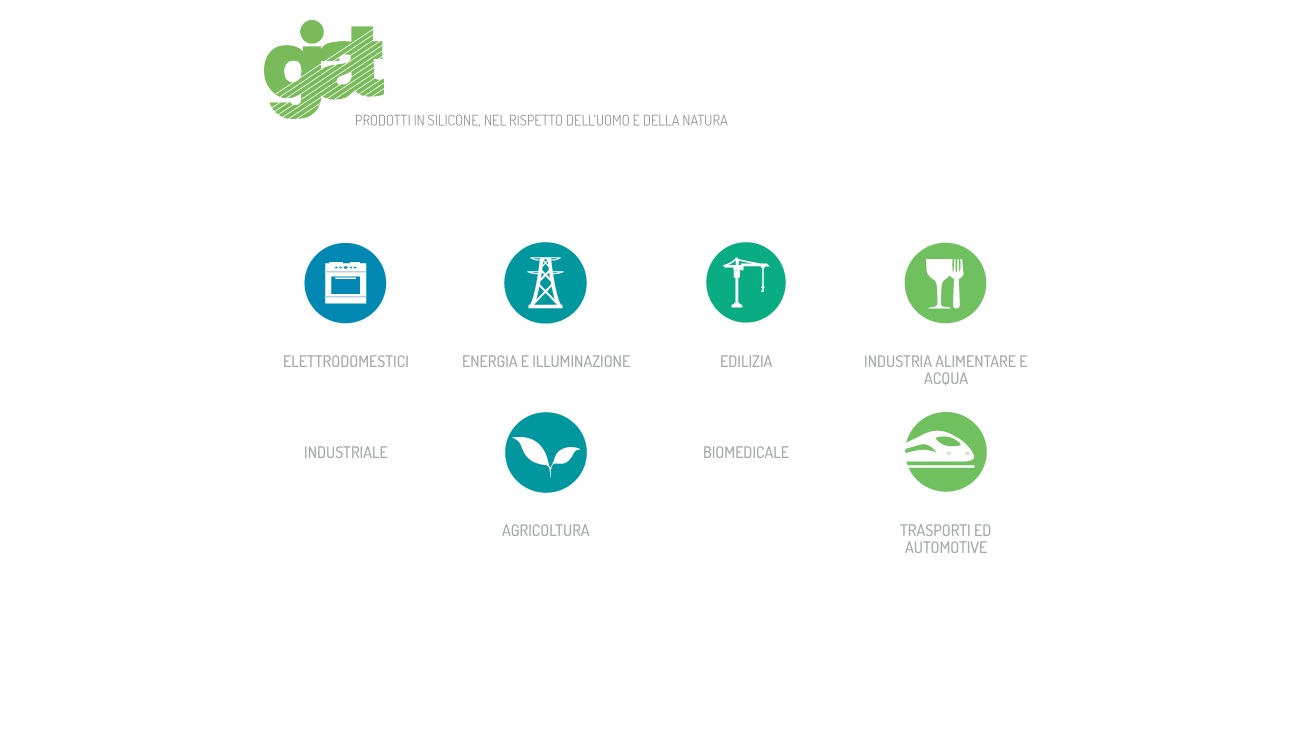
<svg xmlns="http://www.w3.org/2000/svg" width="1292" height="745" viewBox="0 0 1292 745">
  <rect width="100%" height="100%" fill="#ffffff"/>
  <image x="264" y="20" width="120" height="99" href="img1.png"/>
  <image x="356" y="114" width="372" height="13" href="img2.png"/>
  <image x="304" y="243" width="83" height="81" href="img3.png"/>
  <text x="283" y="367" font-family="Dosis" font-size="16" font-weight="500" fill="#a7a9ac">ELETTRODOMESTICI</text>
  <image x="504" y="242" width="83" height="82" href="img4.png"/>
  <text x="462" y="367" font-family="Dosis" font-size="16" font-weight="500" fill="#a7a9ac">ENERGIA E ILLUMINAZIONE</text>
  <image x="706" y="242" width="80" height="81" href="img5.png"/>
  <text x="720" y="367" font-family="Dosis" font-size="16" font-weight="500" fill="#a7a9ac">EDILIZIA</text>
  <image x="904" y="242" width="83" height="82" href="img6.png"/>
  <text x="864" y="367" font-family="Dosis" font-size="16" font-weight="500" fill="#a7a9ac">INDUSTRIA ALIMENTARE E</text>
  <text x="924" y="384" font-family="Dosis" font-size="16" font-weight="500" fill="#a7a9ac">ACQUA</text>
  <text x="304" y="458" font-family="Dosis" font-size="16" font-weight="500" fill="#a7a9ac">INDUSTRIALE</text>
  <text x="703" y="458" font-family="Dosis" font-size="16" font-weight="500" fill="#a7a9ac">BIOMEDICALE</text>
  <image x="505" y="412" width="82" height="81" href="img7.png"/>
  <text x="502" y="536" font-family="Dosis" font-size="16" font-weight="500" fill="#a7a9ac">AGRICOLTURA</text>
  <image x="905" y="412" width="82" height="80" href="img8.png"/>
  <text x="900" y="536" font-family="Dosis" font-size="16" font-weight="500" fill="#a7a9ac">TRASPORTI ED</text>
  <text x="905" y="553" font-family="Dosis" font-size="16" font-weight="500" fill="#a7a9ac">AUTOMOTIVE</text>
</svg>
